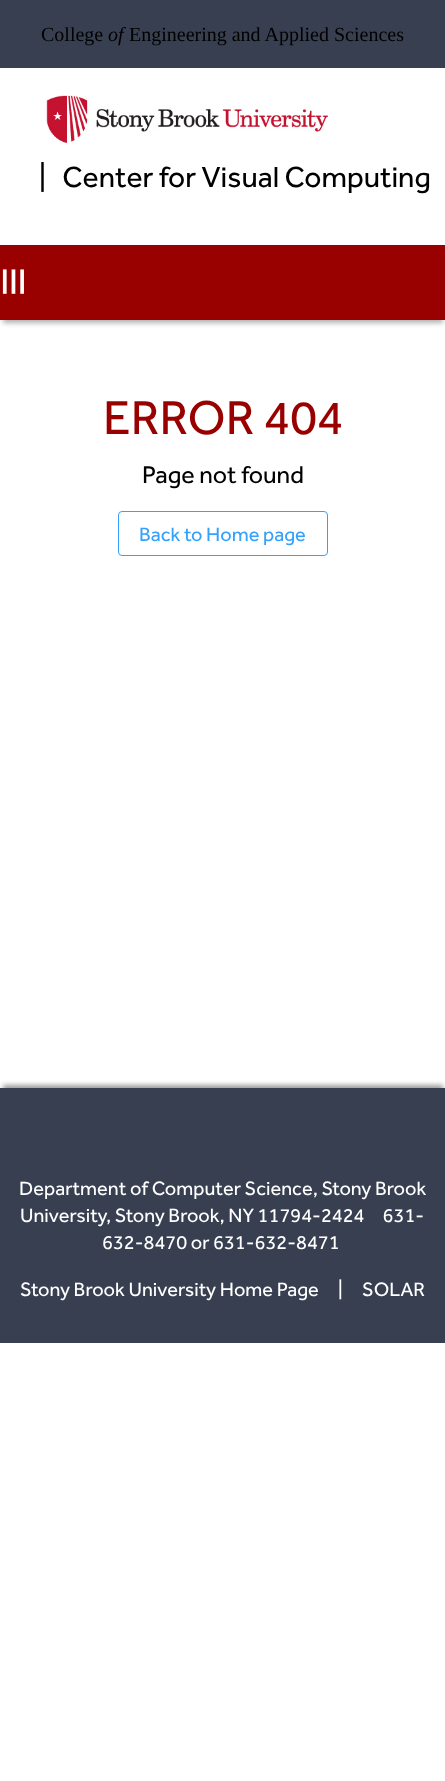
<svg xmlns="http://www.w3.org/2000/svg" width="445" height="1781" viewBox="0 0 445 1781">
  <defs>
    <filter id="blur1" x="-50%" y="-200%" width="200%" height="500%"><feGaussianBlur stdDeviation="2.5"/></filter>
  </defs>
  <rect width="100%" height="100%" fill="#ffffff"/>
  <rect x="0" y="0" width="445" height="68" fill="#373f51"/>
  <text x="41" y="41" font-family="Liberation Serif" font-size="20" fill="#000000">College</text>
  <text x="108" y="41" font-family="Liberation Serif" font-size="20" font-style="italic" fill="#000000">of</text>
  <text x="129" y="41" font-family="Liberation Serif" font-size="20" fill="#000000">Engineering and Applied Sciences</text>
  <image x="46" y="95" width="282" height="48" href="img1.png"/>
  <text x="39" y="187" font-family="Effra" font-size="30" fill="#000000" xml:space="preserve">|   Center for Visual Computing</text>
  <rect x="3" y="253" width="440" height="70" fill="#000000" fill-opacity="0.3" filter="url(#blur1)"/>
  <rect x="0" y="245" width="445" height="75" fill="#990000"/>
  <text x="-3" y="267" transform="rotate(90 -3 267)" font-family="Liberation Sans" font-size="50" fill="#ffffff">≡</text>
  <text x="103" y="434" font-family="Effra" font-size="49" fill="#990000">ERROR 404</text>
  <text x="142" y="483" font-family="Effra" font-size="25" fill="#000000">Page not found</text>
  <rect x="118.5" y="511.5" width="209" height="44" rx="3.5" fill="none" stroke="#33a1fd"/>
  <text x="139" y="541" font-family="Effra" font-size="20" fill="#33a1fd">Back to Home page</text>
  <rect x="3" y="1085" width="440" height="250" fill="#000000" fill-opacity="0.4" filter="url(#blur1)"/>
  <rect x="0" y="1088" width="445" height="255" fill="#373f51"/>
  <text x="19" y="1195" font-family="Effra" font-size="20" fill="#ffffff">Department of Computer Science, Stony Brook</text>
  <text x="20" y="1222" font-family="Effra" font-size="20" fill="#ffffff" xml:space="preserve">University, Stony Brook, NY 11794-2424     631-</text>
  <text x="102" y="1249" font-family="Effra" font-size="20" fill="#ffffff">632-8470 or 631-632-8471</text>
  <text x="20" y="1296" font-family="Effra" font-size="20" fill="#ffffff">Stony Brook University Home Page</text>
  <text x="338" y="1296" font-family="Effra" font-size="20" fill="#ffffff">|</text>
  <text x="362" y="1296" font-family="Effra" font-size="20" fill="#ffffff">SOLAR</text>
</svg>
